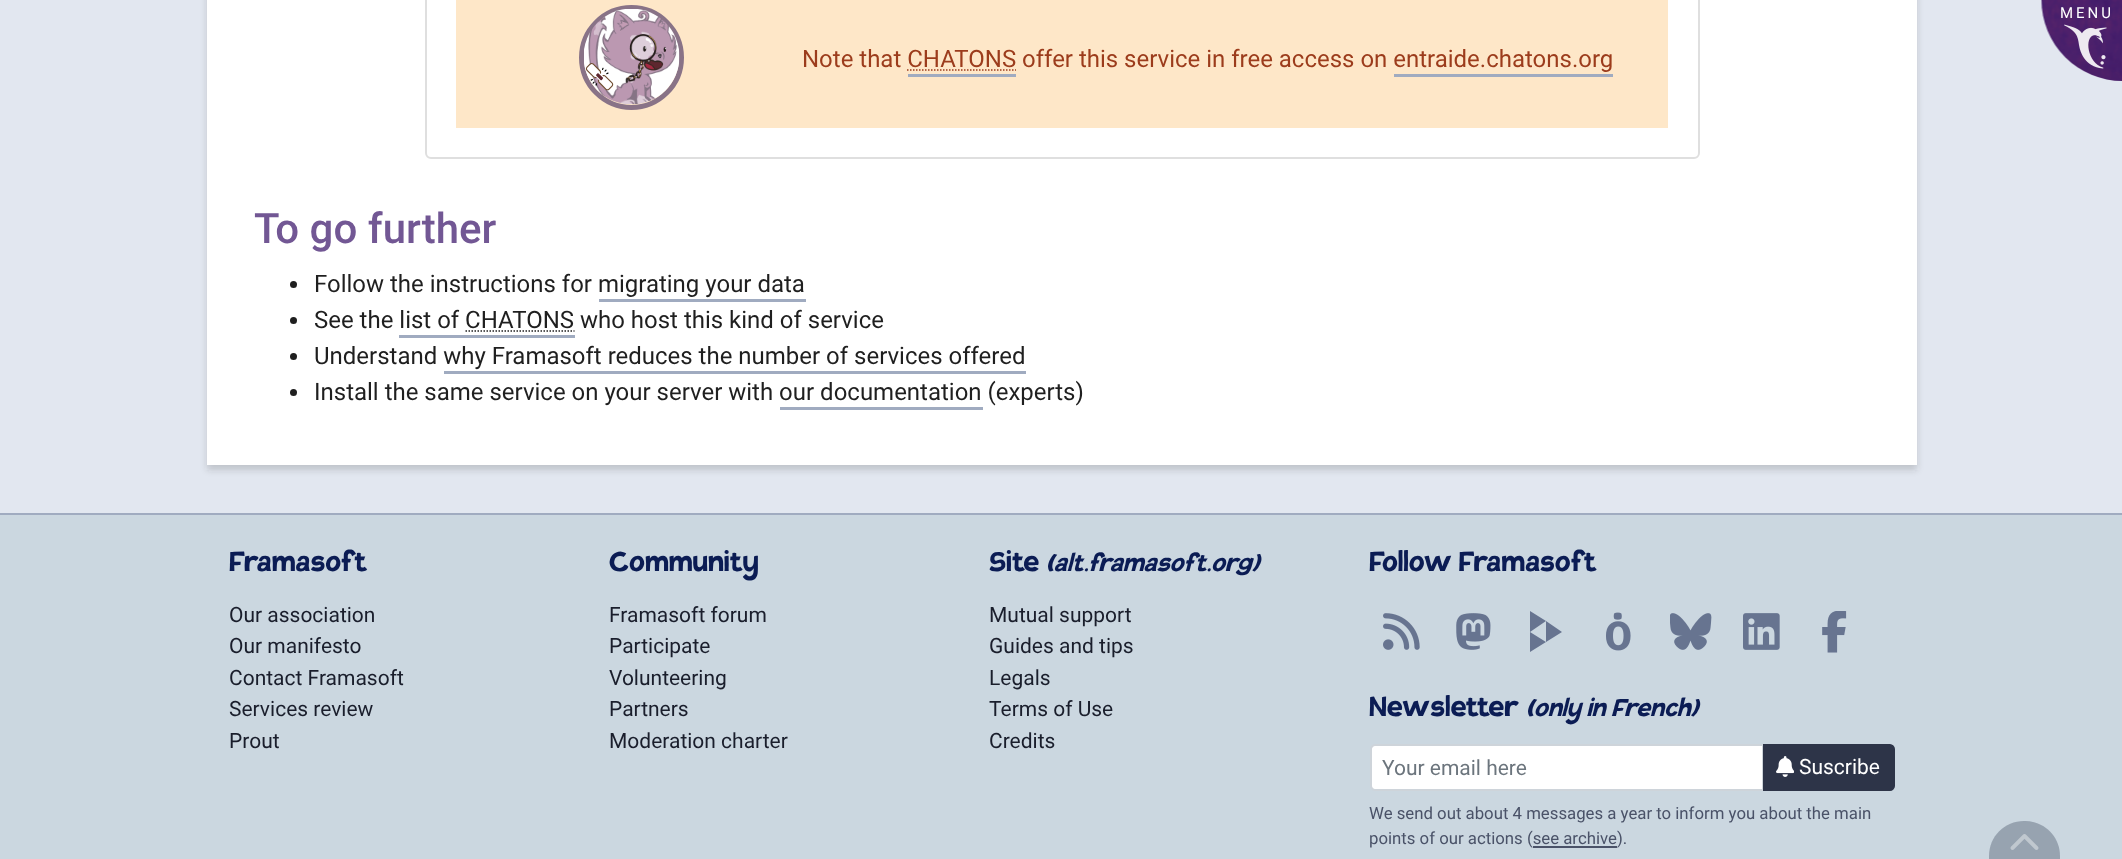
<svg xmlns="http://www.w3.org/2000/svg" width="2122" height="859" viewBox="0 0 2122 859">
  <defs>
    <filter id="blur1" x="-50%" y="-200%" width="200%" height="500%"><feGaussianBlur stdDeviation="3"/></filter>
  </defs>
  <rect width="100%" height="100%" fill="#e2e7f0"/>
  <image x="2041" y="0" width="81" height="81" href="img1.png"/>
  <text x="2060" y="18" font-family="Roboto" font-size="15" letter-spacing="3" fill="#ffffff">MENU</text>
  <image x="2064" y="24" width="43" height="45" href="img2.png"/>
  <rect x="0" y="515" width="2122" height="344" fill="#cbd7e0"/>
  <path d="M2024 821H2025C2044.5 821 2060 836.5 2060 856V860H1989V856C1989 836.5 2004.5 821 2024 821Z" fill="#97a3b0"/>
  <image x="2010" y="834" width="29" height="16" href="img3.png"/>
  <rect x="207" y="-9" width="1710" height="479" fill="#323232" fill-opacity="0.2" filter="url(#blur1)"/>
  <rect x="207" y="0" width="1710" height="465" fill="#ffffff"/>
  <rect x="426" y="-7" width="1273" height="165" rx="5" fill="none" stroke="#dfdfdf" stroke-width="2"/>
  <rect x="456" y="0" width="1212" height="128" fill="#fee7c8"/>
  <circle cx="631.5" cy="57.5" r="50" fill="none" stroke="#897387" stroke-width="5"/>
  <image x="584" y="9" width="96" height="96" href="img4.png"/>
  <text x="802" y="67" font-family="Roboto" font-size="24" fill="#9c3c1c">Note that CHATONS offer this service in free access on entraide.chatons.org</text>
  <path d="M907 70H1016" fill="none" stroke="#9c3c1c" stroke-width="1.5" stroke-dasharray="1.5 1.5"/>
  <rect x="908" y="74" width="108" height="3" fill="#a0abc0"/>
  <rect x="1394" y="74" width="219" height="3" fill="#a0abc0"/>
  <text x="254" y="243" font-family="Roboto" font-size="42" font-weight="500" fill="#725794">To go further</text>
  <circle cx="293.5" cy="284.5" r="3.5" fill="#1f1f1f"/>
  <text x="314" y="292" font-family="Roboto" font-size="24" fill="#1f1f1f">Follow the instructions for migrating your data</text>
  <rect x="599" y="299" width="207" height="3" fill="#a0abc0"/>
  <circle cx="293.5" cy="320.5" r="3.5" fill="#1f1f1f"/>
  <text x="314" y="328" font-family="Roboto" font-size="24" fill="#1f1f1f">See the list of CHATONS who host this kind of service</text>
  <path d="M465.5 331H574.5" fill="none" stroke="#1f1f1f" stroke-width="1.5" stroke-dasharray="1.5 1.5"/>
  <rect x="399" y="335" width="176" height="3" fill="#a0abc0"/>
  <circle cx="293.5" cy="356.5" r="3.5" fill="#1f1f1f"/>
  <text x="314" y="364" font-family="Roboto" font-size="24" fill="#1f1f1f">Understand why Framasoft reduces the number of services offered</text>
  <rect x="444" y="371" width="582" height="3" fill="#a0abc0"/>
  <circle cx="293.5" cy="392.5" r="3.5" fill="#1f1f1f"/>
  <text x="314" y="400" font-family="Roboto" font-size="24" fill="#1f1f1f">Install the same service on your server with our documentation (experts)</text>
  <rect x="780" y="407" width="203" height="3" fill="#a0abc0"/>
  <rect x="0" y="513" width="2122" height="2" fill="#a0abc0"/>
  <text x="229" y="571" font-family="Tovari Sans" font-size="36" font-weight="bold" fill="#0b1c54">Framasoft</text>
  <text x="229" y="622" font-family="Roboto" font-size="21" fill="#1a1e2c">Our association</text>
  <text x="229" y="653" font-family="Roboto" font-size="21" fill="#1a1e2c">Our manifesto</text>
  <text x="229" y="685" font-family="Roboto" font-size="21" fill="#1a1e2c">Contact Framasoft</text>
  <text x="229" y="716" font-family="Roboto" font-size="21" fill="#1a1e2c">Services review</text>
  <text x="229" y="748" font-family="Roboto" font-size="21" fill="#1a1e2c">Prout</text>
  <text x="609" y="571" font-family="Tovari Sans" font-size="36" font-weight="bold" fill="#0b1c54">Community</text>
  <text x="609" y="622" font-family="Roboto" font-size="21" fill="#1a1e2c">Framasoft forum</text>
  <text x="609" y="653" font-family="Roboto" font-size="21" fill="#1a1e2c">Participate</text>
  <text x="609" y="685" font-family="Roboto" font-size="21" fill="#1a1e2c">Volunteering</text>
  <text x="609" y="716" font-family="Roboto" font-size="21" fill="#1a1e2c">Partners</text>
  <text x="609" y="748" font-family="Roboto" font-size="21" fill="#1a1e2c">Moderation charter</text>
  <text x="989" y="571" font-family="Tovari Sans" font-size="36" font-weight="bold" fill="#0b1c54">Site</text>
  <text x="1046" y="571" font-family="Tovari Sans" font-size="31.5" font-weight="bold" font-style="italic" fill="#0b1c54">(alt.framasoft.org)</text>
  <text x="989" y="622" font-family="Roboto" font-size="21" fill="#1a1e2c">Mutual support</text>
  <text x="989" y="653" font-family="Roboto" font-size="21" fill="#1a1e2c">Guides and tips</text>
  <text x="989" y="685" font-family="Roboto" font-size="21" fill="#1a1e2c">Legals</text>
  <text x="989" y="716" font-family="Roboto" font-size="21" fill="#1a1e2c">Terms of Use</text>
  <text x="989" y="748" font-family="Roboto" font-size="21" fill="#1a1e2c">Credits</text>
  <text x="1369" y="571" font-family="Tovari Sans" font-size="36" font-weight="bold" fill="#0b1c54">Follow Framasoft</text>
  <image x="1383" y="613" width="37" height="37" href="img5.png"/>
  <image x="1456" y="613" width="35" height="37" href="img6.png"/>
  <path d="M1530 611V632L1546 621ZM1546 621V642L1562 632ZM1546 642L1530 632V652Z" fill="#677490"/>
  <image x="1606" y="612" width="25" height="39" href="img7.png"/>
  <image x="1670" y="613" width="42" height="37" href="img8.png"/>
  <image x="1743" y="613" width="37" height="37" href="img9.png"/>
  <image x="1822" y="611" width="25" height="42" href="img10.png"/>
  <text x="1369" y="716" font-family="Tovari Sans" font-size="36" font-weight="bold" fill="#0b1c54">Newsletter</text>
  <text x="1526" y="716" font-family="Tovari Sans" font-size="31.5" font-weight="bold" font-style="italic" fill="#0b1c54">(only in French)</text>
  <path d="M1375 745H1763V790H1375C1373 790 1371 788 1371 786V749C1371 747 1373 745 1375 745Z" fill="#ffffff" stroke="#ced4da" stroke-width="2"/>
  <text x="1382" y="775" font-family="Roboto" font-size="21" fill="#6c757d">Your email here</text>
  <path d="M1764 745H1890C1892 745 1894 747 1894 749V786C1894 788 1892 790 1890 790H1764Z" fill="#2d3448" stroke="#2d3448" stroke-width="2"/>
  <image x="1776" y="756" width="18" height="21" href="img11.png"/>
  <text x="1799" y="774" font-family="Roboto" font-size="21" fill="#ffffff">Suscribe</text>
  <text x="1369" y="819" font-family="Roboto" font-size="16.8" fill="#4a5268">We send out about 4 messages a year to inform you about the main</text>
  <text x="1369" y="844" font-family="Roboto" font-size="16.8" fill="#4a5268">points of our actions (see archive).</text>
  <rect x="1533" y="846" width="84" height="2" fill="#4a5268"/>
</svg>
